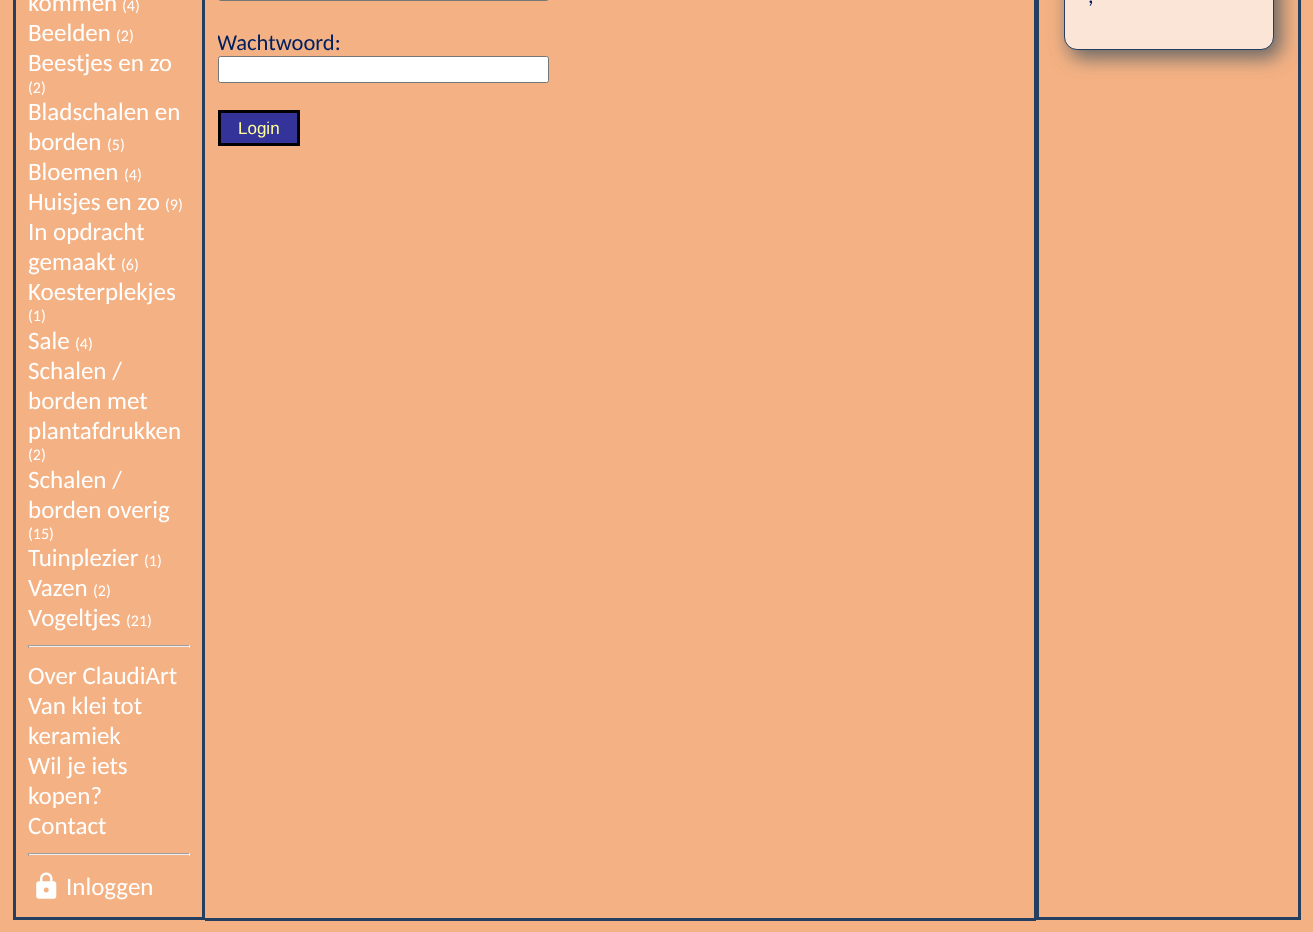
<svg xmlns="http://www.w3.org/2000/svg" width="1313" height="932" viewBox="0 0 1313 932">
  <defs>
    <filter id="blur1" x="-50%" y="-200%" width="200%" height="500%"><feGaussianBlur stdDeviation="9.5"/></filter>
    <clipPath id="clip1"><rect x="218" y="0" width="803" height="588"/></clipPath>
  </defs>
  <rect width="100%" height="100%" fill="#f4b183"/>
  <rect x="14.5" y="-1.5" width="189" height="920" fill="none" stroke="#243f60" stroke-width="3"/>
  <text x="28" y="11" font-family="Carlito" font-size="25" fill="#ffffff">kommen</text>
  <text x="122" y="11" font-family="Carlito" font-size="16" fill="#ffffff">(4)</text>
  <text x="28" y="41" font-family="Carlito" font-size="25" fill="#ffffff">Beelden</text>
  <text x="116" y="41" font-family="Carlito" font-size="16" fill="#ffffff">(2)</text>
  <text x="28" y="71" font-family="Carlito" font-size="25" fill="#ffffff">Beestjes en zo</text>
  <text x="28" y="93" font-family="Carlito" font-size="16" fill="#ffffff">(2)</text>
  <text x="28" y="120" font-family="Carlito" font-size="25" fill="#ffffff">Bladschalen en</text>
  <text x="28" y="150" font-family="Carlito" font-size="25" fill="#ffffff">borden</text>
  <text x="107" y="150" font-family="Carlito" font-size="16" fill="#ffffff">(5)</text>
  <text x="28" y="180" font-family="Carlito" font-size="25" fill="#ffffff">Bloemen</text>
  <text x="124" y="180" font-family="Carlito" font-size="16" fill="#ffffff">(4)</text>
  <text x="28" y="210" font-family="Carlito" font-size="25" fill="#ffffff">Huisjes en zo</text>
  <text x="165" y="210" font-family="Carlito" font-size="16" fill="#ffffff">(9)</text>
  <text x="28" y="240" font-family="Carlito" font-size="25" fill="#ffffff">In opdracht</text>
  <text x="28" y="270" font-family="Carlito" font-size="25" fill="#ffffff">gemaakt</text>
  <text x="121" y="270" font-family="Carlito" font-size="16" fill="#ffffff">(6)</text>
  <text x="28" y="300" font-family="Carlito" font-size="25" fill="#ffffff">Koesterplekjes</text>
  <text x="28" y="321" font-family="Carlito" font-size="16" fill="#ffffff">(1)</text>
  <text x="28" y="349" font-family="Carlito" font-size="25" fill="#ffffff">Sale</text>
  <text x="75" y="349" font-family="Carlito" font-size="16" fill="#ffffff">(4)</text>
  <text x="28" y="379" font-family="Carlito" font-size="25" fill="#ffffff">Schalen /</text>
  <text x="28" y="409" font-family="Carlito" font-size="25" fill="#ffffff">borden met</text>
  <text x="28" y="439" font-family="Carlito" font-size="25" fill="#ffffff">plantafdrukken</text>
  <text x="28" y="460" font-family="Carlito" font-size="16" fill="#ffffff">(2)</text>
  <text x="28" y="488" font-family="Carlito" font-size="25" fill="#ffffff">Schalen /</text>
  <text x="28" y="518" font-family="Carlito" font-size="25" fill="#ffffff">borden overig</text>
  <text x="28" y="539" font-family="Carlito" font-size="16" fill="#ffffff">(15)</text>
  <text x="28" y="566" font-family="Carlito" font-size="25" fill="#ffffff">Tuinplezier</text>
  <text x="144" y="566" font-family="Carlito" font-size="16" fill="#ffffff">(1)</text>
  <text x="28" y="596" font-family="Carlito" font-size="25" fill="#ffffff">Vazen</text>
  <text x="93" y="596" font-family="Carlito" font-size="16" fill="#ffffff">(2)</text>
  <text x="28" y="626" font-family="Carlito" font-size="25" fill="#ffffff">Vogeltjes</text>
  <text x="126" y="626" font-family="Carlito" font-size="16" fill="#ffffff">(21)</text>
  <rect x="28" y="645" width="162" height="1" fill="#9f9f9f"/>
  <rect x="189" y="645" width="1" height="3" fill="#eeeeee"/>
  <rect x="28" y="646" width="162" height="1" fill="#eeeeee"/>
  <rect x="28" y="645" width="1" height="3" fill="#9f9f9f"/>
  <text x="28" y="684" font-family="Carlito" font-size="25" fill="#ffffff">Over ClaudiArt</text>
  <text x="28" y="714" font-family="Carlito" font-size="25" fill="#ffffff">Van klei tot</text>
  <text x="28" y="744" font-family="Carlito" font-size="25" fill="#ffffff">keramiek</text>
  <text x="28" y="774" font-family="Carlito" font-size="25" fill="#ffffff">Wil je iets</text>
  <text x="28" y="804" font-family="Carlito" font-size="25" fill="#ffffff">kopen?</text>
  <text x="28" y="834" font-family="Carlito" font-size="25" fill="#ffffff">Contact</text>
  <rect x="28" y="853" width="162" height="1" fill="#9f9f9f"/>
  <rect x="189" y="853" width="1" height="3" fill="#eeeeee"/>
  <rect x="28" y="854" width="162" height="1" fill="#eeeeee"/>
  <rect x="28" y="853" width="1" height="3" fill="#9f9f9f"/>
  <image x="36" y="872" width="21" height="27" href="img1.png"/>
  <text x="66" y="895" font-family="Carlito" font-size="25" fill="#ffffff">Inloggen</text>
  <rect x="1037.5" y="-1.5" width="262" height="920" fill="none" stroke="#243f60" stroke-width="3"/>
  <rect x="1069" y="-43" width="212" height="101" rx="14" fill="#666666" filter="url(#blur1)"/>
  <rect x="1064.5" y="-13.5" width="209" height="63" rx="12.5" fill="#fbe5d6" stroke="#243f60"/>
  <text x="1088" y="3" font-family="Carlito" font-size="22.5" fill="#002060">,</text>
  <rect x="1034" y="0" width="2" height="920" fill="#243f60"/>
  <rect x="205" y="918" width="831" height="3" fill="#243f60"/>
  <rect x="218.5" y="-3.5" width="330" height="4" rx="2" fill="none" stroke="#767676"/>
  <g clip-path="url(#clip1)">
    <text x="217" y="50" font-family="Carlito" font-size="22.5" fill="#002060">Wachtwoord:</text>
  </g>
  <rect x="218.5" y="56.5" width="330" height="26" rx="2" fill="#ffffff" stroke="#767676"/>
  <rect x="219.5" y="111.5" width="79" height="33" fill="#333399" stroke="#000000" stroke-width="3"/>
  <text x="238" y="134" font-family="Liberation Sans" font-size="17" fill="#ffff99">Login</text>
</svg>
